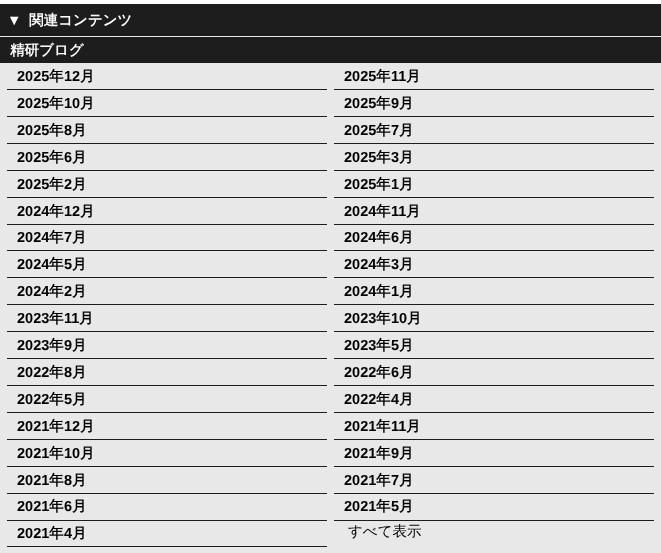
<svg xmlns="http://www.w3.org/2000/svg" width="661" height="553" viewBox="0 0 661 553">
  <rect width="100%" height="100%" fill="#ffffff"/>
  <rect x="0" y="36" width="661" height="517" fill="#e8e8e8"/>
  <rect x="0" y="4" width="661" height="32" fill="#1d1d1d"/>
  <text x="7" y="25" font-family="Liberation Sans" font-size="14.5" font-weight="bold" fill="#ffffff">▼</text>
  <text x="29" y="25" font-family="WenQuanYi Zen Hei" font-size="14.5" font-weight="bold" fill="#ffffff">関連コンテンツ</text>
  <rect x="0" y="37" width="661" height="26" fill="#1d1d1d"/>
  <text x="10" y="55" font-family="WenQuanYi Zen Hei" font-size="14.5" font-weight="bold" fill="#ffffff">精研ブログ</text>
  <rect x="7" y="89" width="320" height="1" fill="#1d1d1d"/>
  <text x="17" y="81" font-family="Liberation Sans" font-size="14.5" font-weight="bold" fill="#000000">2025</text>
  <text x="49" y="81" font-family="WenQuanYi Zen Hei" font-size="14.5" font-weight="bold" fill="#000000">年</text>
  <text x="64" y="81" font-family="Liberation Sans" font-size="14.5" font-weight="bold" fill="#000000">12</text>
  <text x="80" y="81" font-family="WenQuanYi Zen Hei" font-size="14.5" font-weight="bold" fill="#000000">月</text>
  <rect x="334" y="89" width="320" height="1" fill="#1d1d1d"/>
  <text x="344" y="81" font-family="Liberation Sans" font-size="14.5" font-weight="bold" fill="#000000">2025</text>
  <text x="376" y="81" font-family="WenQuanYi Zen Hei" font-size="14.5" font-weight="bold" fill="#000000">年</text>
  <text x="391" y="81" font-family="Liberation Sans" font-size="14.5" font-weight="bold" fill="#000000">11</text>
  <text x="406" y="81" font-family="WenQuanYi Zen Hei" font-size="14.5" font-weight="bold" fill="#000000">月</text>
  <rect x="7" y="116" width="320" height="1" fill="#1d1d1d"/>
  <text x="17" y="108" font-family="Liberation Sans" font-size="14.5" font-weight="bold" fill="#000000">2025</text>
  <text x="49" y="108" font-family="WenQuanYi Zen Hei" font-size="14.5" font-weight="bold" fill="#000000">年</text>
  <text x="64" y="108" font-family="Liberation Sans" font-size="14.5" font-weight="bold" fill="#000000">10</text>
  <text x="80" y="108" font-family="WenQuanYi Zen Hei" font-size="14.5" font-weight="bold" fill="#000000">月</text>
  <rect x="334" y="116" width="320" height="1" fill="#1d1d1d"/>
  <text x="344" y="108" font-family="Liberation Sans" font-size="14.5" font-weight="bold" fill="#000000">2025</text>
  <text x="376" y="108" font-family="WenQuanYi Zen Hei" font-size="14.5" font-weight="bold" fill="#000000">年</text>
  <text x="391" y="108" font-family="Liberation Sans" font-size="14.5" font-weight="bold" fill="#000000">9</text>
  <text x="399" y="108" font-family="WenQuanYi Zen Hei" font-size="14.5" font-weight="bold" fill="#000000">月</text>
  <rect x="7" y="143" width="320" height="1" fill="#1d1d1d"/>
  <text x="17" y="135" font-family="Liberation Sans" font-size="14.5" font-weight="bold" fill="#000000">2025</text>
  <text x="49" y="135" font-family="WenQuanYi Zen Hei" font-size="14.5" font-weight="bold" fill="#000000">年</text>
  <text x="64" y="135" font-family="Liberation Sans" font-size="14.5" font-weight="bold" fill="#000000">8</text>
  <text x="72" y="135" font-family="WenQuanYi Zen Hei" font-size="14.5" font-weight="bold" fill="#000000">月</text>
  <rect x="334" y="143" width="320" height="1" fill="#1d1d1d"/>
  <text x="344" y="135" font-family="Liberation Sans" font-size="14.5" font-weight="bold" fill="#000000">2025</text>
  <text x="376" y="135" font-family="WenQuanYi Zen Hei" font-size="14.5" font-weight="bold" fill="#000000">年</text>
  <text x="391" y="135" font-family="Liberation Sans" font-size="14.5" font-weight="bold" fill="#000000">7</text>
  <text x="399" y="135" font-family="WenQuanYi Zen Hei" font-size="14.5" font-weight="bold" fill="#000000">月</text>
  <rect x="7" y="170" width="320" height="1" fill="#1d1d1d"/>
  <text x="17" y="162" font-family="Liberation Sans" font-size="14.5" font-weight="bold" fill="#000000">2025</text>
  <text x="49" y="162" font-family="WenQuanYi Zen Hei" font-size="14.5" font-weight="bold" fill="#000000">年</text>
  <text x="64" y="162" font-family="Liberation Sans" font-size="14.5" font-weight="bold" fill="#000000">6</text>
  <text x="72" y="162" font-family="WenQuanYi Zen Hei" font-size="14.5" font-weight="bold" fill="#000000">月</text>
  <rect x="334" y="170" width="320" height="1" fill="#1d1d1d"/>
  <text x="344" y="162" font-family="Liberation Sans" font-size="14.5" font-weight="bold" fill="#000000">2025</text>
  <text x="376" y="162" font-family="WenQuanYi Zen Hei" font-size="14.5" font-weight="bold" fill="#000000">年</text>
  <text x="391" y="162" font-family="Liberation Sans" font-size="14.5" font-weight="bold" fill="#000000">3</text>
  <text x="399" y="162" font-family="WenQuanYi Zen Hei" font-size="14.5" font-weight="bold" fill="#000000">月</text>
  <rect x="7" y="197" width="320" height="1" fill="#1d1d1d"/>
  <text x="17" y="189" font-family="Liberation Sans" font-size="14.5" font-weight="bold" fill="#000000">2025</text>
  <text x="49" y="189" font-family="WenQuanYi Zen Hei" font-size="14.5" font-weight="bold" fill="#000000">年</text>
  <text x="64" y="189" font-family="Liberation Sans" font-size="14.5" font-weight="bold" fill="#000000">2</text>
  <text x="72" y="189" font-family="WenQuanYi Zen Hei" font-size="14.5" font-weight="bold" fill="#000000">月</text>
  <rect x="334" y="197" width="320" height="1" fill="#1d1d1d"/>
  <text x="344" y="189" font-family="Liberation Sans" font-size="14.5" font-weight="bold" fill="#000000">2025</text>
  <text x="376" y="189" font-family="WenQuanYi Zen Hei" font-size="14.5" font-weight="bold" fill="#000000">年</text>
  <text x="391" y="189" font-family="Liberation Sans" font-size="14.5" font-weight="bold" fill="#000000">1</text>
  <text x="399" y="189" font-family="WenQuanYi Zen Hei" font-size="14.5" font-weight="bold" fill="#000000">月</text>
  <rect x="7" y="224" width="320" height="1" fill="#1d1d1d"/>
  <text x="17" y="216" font-family="Liberation Sans" font-size="14.5" font-weight="bold" fill="#000000">2024</text>
  <text x="49" y="216" font-family="WenQuanYi Zen Hei" font-size="14.5" font-weight="bold" fill="#000000">年</text>
  <text x="64" y="216" font-family="Liberation Sans" font-size="14.5" font-weight="bold" fill="#000000">12</text>
  <text x="80" y="216" font-family="WenQuanYi Zen Hei" font-size="14.5" font-weight="bold" fill="#000000">月</text>
  <rect x="334" y="224" width="320" height="1" fill="#1d1d1d"/>
  <text x="344" y="216" font-family="Liberation Sans" font-size="14.5" font-weight="bold" fill="#000000">2024</text>
  <text x="376" y="216" font-family="WenQuanYi Zen Hei" font-size="14.5" font-weight="bold" fill="#000000">年</text>
  <text x="391" y="216" font-family="Liberation Sans" font-size="14.5" font-weight="bold" fill="#000000">11</text>
  <text x="406" y="216" font-family="WenQuanYi Zen Hei" font-size="14.5" font-weight="bold" fill="#000000">月</text>
  <rect x="7" y="250" width="320" height="1" fill="#1d1d1d"/>
  <text x="17" y="242" font-family="Liberation Sans" font-size="14.5" font-weight="bold" fill="#000000">2024</text>
  <text x="49" y="242" font-family="WenQuanYi Zen Hei" font-size="14.5" font-weight="bold" fill="#000000">年</text>
  <text x="64" y="242" font-family="Liberation Sans" font-size="14.5" font-weight="bold" fill="#000000">7</text>
  <text x="72" y="242" font-family="WenQuanYi Zen Hei" font-size="14.5" font-weight="bold" fill="#000000">月</text>
  <rect x="334" y="250" width="320" height="1" fill="#1d1d1d"/>
  <text x="344" y="242" font-family="Liberation Sans" font-size="14.5" font-weight="bold" fill="#000000">2024</text>
  <text x="376" y="242" font-family="WenQuanYi Zen Hei" font-size="14.5" font-weight="bold" fill="#000000">年</text>
  <text x="391" y="242" font-family="Liberation Sans" font-size="14.5" font-weight="bold" fill="#000000">6</text>
  <text x="399" y="242" font-family="WenQuanYi Zen Hei" font-size="14.5" font-weight="bold" fill="#000000">月</text>
  <rect x="7" y="277" width="320" height="1" fill="#1d1d1d"/>
  <text x="17" y="269" font-family="Liberation Sans" font-size="14.5" font-weight="bold" fill="#000000">2024</text>
  <text x="49" y="269" font-family="WenQuanYi Zen Hei" font-size="14.5" font-weight="bold" fill="#000000">年</text>
  <text x="64" y="269" font-family="Liberation Sans" font-size="14.5" font-weight="bold" fill="#000000">5</text>
  <text x="72" y="269" font-family="WenQuanYi Zen Hei" font-size="14.5" font-weight="bold" fill="#000000">月</text>
  <rect x="334" y="277" width="320" height="1" fill="#1d1d1d"/>
  <text x="344" y="269" font-family="Liberation Sans" font-size="14.5" font-weight="bold" fill="#000000">2024</text>
  <text x="376" y="269" font-family="WenQuanYi Zen Hei" font-size="14.5" font-weight="bold" fill="#000000">年</text>
  <text x="391" y="269" font-family="Liberation Sans" font-size="14.5" font-weight="bold" fill="#000000">3</text>
  <text x="399" y="269" font-family="WenQuanYi Zen Hei" font-size="14.5" font-weight="bold" fill="#000000">月</text>
  <rect x="7" y="304" width="320" height="1" fill="#1d1d1d"/>
  <text x="17" y="296" font-family="Liberation Sans" font-size="14.5" font-weight="bold" fill="#000000">2024</text>
  <text x="49" y="296" font-family="WenQuanYi Zen Hei" font-size="14.5" font-weight="bold" fill="#000000">年</text>
  <text x="64" y="296" font-family="Liberation Sans" font-size="14.5" font-weight="bold" fill="#000000">2</text>
  <text x="72" y="296" font-family="WenQuanYi Zen Hei" font-size="14.5" font-weight="bold" fill="#000000">月</text>
  <rect x="334" y="304" width="320" height="1" fill="#1d1d1d"/>
  <text x="344" y="296" font-family="Liberation Sans" font-size="14.5" font-weight="bold" fill="#000000">2024</text>
  <text x="376" y="296" font-family="WenQuanYi Zen Hei" font-size="14.5" font-weight="bold" fill="#000000">年</text>
  <text x="391" y="296" font-family="Liberation Sans" font-size="14.5" font-weight="bold" fill="#000000">1</text>
  <text x="399" y="296" font-family="WenQuanYi Zen Hei" font-size="14.5" font-weight="bold" fill="#000000">月</text>
  <rect x="7" y="331" width="320" height="1" fill="#1d1d1d"/>
  <text x="17" y="323" font-family="Liberation Sans" font-size="14.5" font-weight="bold" fill="#000000">2023</text>
  <text x="49" y="323" font-family="WenQuanYi Zen Hei" font-size="14.5" font-weight="bold" fill="#000000">年</text>
  <text x="64" y="323" font-family="Liberation Sans" font-size="14.5" font-weight="bold" fill="#000000">11</text>
  <text x="79" y="323" font-family="WenQuanYi Zen Hei" font-size="14.5" font-weight="bold" fill="#000000">月</text>
  <rect x="334" y="331" width="320" height="1" fill="#1d1d1d"/>
  <text x="344" y="323" font-family="Liberation Sans" font-size="14.5" font-weight="bold" fill="#000000">2023</text>
  <text x="376" y="323" font-family="WenQuanYi Zen Hei" font-size="14.5" font-weight="bold" fill="#000000">年</text>
  <text x="391" y="323" font-family="Liberation Sans" font-size="14.5" font-weight="bold" fill="#000000">10</text>
  <text x="407" y="323" font-family="WenQuanYi Zen Hei" font-size="14.5" font-weight="bold" fill="#000000">月</text>
  <rect x="7" y="358" width="320" height="1" fill="#1d1d1d"/>
  <text x="17" y="350" font-family="Liberation Sans" font-size="14.5" font-weight="bold" fill="#000000">2023</text>
  <text x="49" y="350" font-family="WenQuanYi Zen Hei" font-size="14.5" font-weight="bold" fill="#000000">年</text>
  <text x="64" y="350" font-family="Liberation Sans" font-size="14.5" font-weight="bold" fill="#000000">9</text>
  <text x="72" y="350" font-family="WenQuanYi Zen Hei" font-size="14.5" font-weight="bold" fill="#000000">月</text>
  <rect x="334" y="358" width="320" height="1" fill="#1d1d1d"/>
  <text x="344" y="350" font-family="Liberation Sans" font-size="14.5" font-weight="bold" fill="#000000">2023</text>
  <text x="376" y="350" font-family="WenQuanYi Zen Hei" font-size="14.5" font-weight="bold" fill="#000000">年</text>
  <text x="391" y="350" font-family="Liberation Sans" font-size="14.5" font-weight="bold" fill="#000000">5</text>
  <text x="399" y="350" font-family="WenQuanYi Zen Hei" font-size="14.5" font-weight="bold" fill="#000000">月</text>
  <rect x="7" y="385" width="320" height="1" fill="#1d1d1d"/>
  <text x="17" y="377" font-family="Liberation Sans" font-size="14.5" font-weight="bold" fill="#000000">2022</text>
  <text x="49" y="377" font-family="WenQuanYi Zen Hei" font-size="14.5" font-weight="bold" fill="#000000">年</text>
  <text x="64" y="377" font-family="Liberation Sans" font-size="14.5" font-weight="bold" fill="#000000">8</text>
  <text x="72" y="377" font-family="WenQuanYi Zen Hei" font-size="14.5" font-weight="bold" fill="#000000">月</text>
  <rect x="334" y="385" width="320" height="1" fill="#1d1d1d"/>
  <text x="344" y="377" font-family="Liberation Sans" font-size="14.5" font-weight="bold" fill="#000000">2022</text>
  <text x="376" y="377" font-family="WenQuanYi Zen Hei" font-size="14.5" font-weight="bold" fill="#000000">年</text>
  <text x="391" y="377" font-family="Liberation Sans" font-size="14.5" font-weight="bold" fill="#000000">6</text>
  <text x="399" y="377" font-family="WenQuanYi Zen Hei" font-size="14.5" font-weight="bold" fill="#000000">月</text>
  <rect x="7" y="412" width="320" height="1" fill="#1d1d1d"/>
  <text x="17" y="404" font-family="Liberation Sans" font-size="14.5" font-weight="bold" fill="#000000">2022</text>
  <text x="49" y="404" font-family="WenQuanYi Zen Hei" font-size="14.5" font-weight="bold" fill="#000000">年</text>
  <text x="64" y="404" font-family="Liberation Sans" font-size="14.5" font-weight="bold" fill="#000000">5</text>
  <text x="72" y="404" font-family="WenQuanYi Zen Hei" font-size="14.5" font-weight="bold" fill="#000000">月</text>
  <rect x="334" y="412" width="320" height="1" fill="#1d1d1d"/>
  <text x="344" y="404" font-family="Liberation Sans" font-size="14.5" font-weight="bold" fill="#000000">2022</text>
  <text x="376" y="404" font-family="WenQuanYi Zen Hei" font-size="14.5" font-weight="bold" fill="#000000">年</text>
  <text x="391" y="404" font-family="Liberation Sans" font-size="14.5" font-weight="bold" fill="#000000">4</text>
  <text x="399" y="404" font-family="WenQuanYi Zen Hei" font-size="14.5" font-weight="bold" fill="#000000">月</text>
  <rect x="7" y="439" width="320" height="1" fill="#1d1d1d"/>
  <text x="17" y="431" font-family="Liberation Sans" font-size="14.5" font-weight="bold" fill="#000000">2021</text>
  <text x="49" y="431" font-family="WenQuanYi Zen Hei" font-size="14.5" font-weight="bold" fill="#000000">年</text>
  <text x="64" y="431" font-family="Liberation Sans" font-size="14.5" font-weight="bold" fill="#000000">12</text>
  <text x="80" y="431" font-family="WenQuanYi Zen Hei" font-size="14.5" font-weight="bold" fill="#000000">月</text>
  <rect x="334" y="439" width="320" height="1" fill="#1d1d1d"/>
  <text x="344" y="431" font-family="Liberation Sans" font-size="14.5" font-weight="bold" fill="#000000">2021</text>
  <text x="376" y="431" font-family="WenQuanYi Zen Hei" font-size="14.5" font-weight="bold" fill="#000000">年</text>
  <text x="391" y="431" font-family="Liberation Sans" font-size="14.5" font-weight="bold" fill="#000000">11</text>
  <text x="406" y="431" font-family="WenQuanYi Zen Hei" font-size="14.5" font-weight="bold" fill="#000000">月</text>
  <rect x="7" y="466" width="320" height="1" fill="#1d1d1d"/>
  <text x="17" y="458" font-family="Liberation Sans" font-size="14.5" font-weight="bold" fill="#000000">2021</text>
  <text x="49" y="458" font-family="WenQuanYi Zen Hei" font-size="14.5" font-weight="bold" fill="#000000">年</text>
  <text x="64" y="458" font-family="Liberation Sans" font-size="14.5" font-weight="bold" fill="#000000">10</text>
  <text x="80" y="458" font-family="WenQuanYi Zen Hei" font-size="14.5" font-weight="bold" fill="#000000">月</text>
  <rect x="334" y="466" width="320" height="1" fill="#1d1d1d"/>
  <text x="344" y="458" font-family="Liberation Sans" font-size="14.5" font-weight="bold" fill="#000000">2021</text>
  <text x="376" y="458" font-family="WenQuanYi Zen Hei" font-size="14.5" font-weight="bold" fill="#000000">年</text>
  <text x="391" y="458" font-family="Liberation Sans" font-size="14.5" font-weight="bold" fill="#000000">9</text>
  <text x="399" y="458" font-family="WenQuanYi Zen Hei" font-size="14.5" font-weight="bold" fill="#000000">月</text>
  <rect x="7" y="493" width="320" height="1" fill="#1d1d1d"/>
  <text x="17" y="485" font-family="Liberation Sans" font-size="14.5" font-weight="bold" fill="#000000">2021</text>
  <text x="49" y="485" font-family="WenQuanYi Zen Hei" font-size="14.5" font-weight="bold" fill="#000000">年</text>
  <text x="64" y="485" font-family="Liberation Sans" font-size="14.5" font-weight="bold" fill="#000000">8</text>
  <text x="72" y="485" font-family="WenQuanYi Zen Hei" font-size="14.5" font-weight="bold" fill="#000000">月</text>
  <rect x="334" y="493" width="320" height="1" fill="#1d1d1d"/>
  <text x="344" y="485" font-family="Liberation Sans" font-size="14.5" font-weight="bold" fill="#000000">2021</text>
  <text x="376" y="485" font-family="WenQuanYi Zen Hei" font-size="14.5" font-weight="bold" fill="#000000">年</text>
  <text x="391" y="485" font-family="Liberation Sans" font-size="14.5" font-weight="bold" fill="#000000">7</text>
  <text x="399" y="485" font-family="WenQuanYi Zen Hei" font-size="14.5" font-weight="bold" fill="#000000">月</text>
  <rect x="7" y="520" width="320" height="1" fill="#1d1d1d"/>
  <text x="17" y="511" font-family="Liberation Sans" font-size="14.5" font-weight="bold" fill="#000000">2021</text>
  <text x="49" y="511" font-family="WenQuanYi Zen Hei" font-size="14.5" font-weight="bold" fill="#000000">年</text>
  <text x="64" y="511" font-family="Liberation Sans" font-size="14.5" font-weight="bold" fill="#000000">6</text>
  <text x="72" y="511" font-family="WenQuanYi Zen Hei" font-size="14.5" font-weight="bold" fill="#000000">月</text>
  <rect x="334" y="520" width="320" height="1" fill="#1d1d1d"/>
  <text x="344" y="511" font-family="Liberation Sans" font-size="14.5" font-weight="bold" fill="#000000">2021</text>
  <text x="376" y="511" font-family="WenQuanYi Zen Hei" font-size="14.5" font-weight="bold" fill="#000000">年</text>
  <text x="391" y="511" font-family="Liberation Sans" font-size="14.5" font-weight="bold" fill="#000000">5</text>
  <text x="399" y="511" font-family="WenQuanYi Zen Hei" font-size="14.5" font-weight="bold" fill="#000000">月</text>
  <rect x="7" y="546" width="320" height="1" fill="#1d1d1d"/>
  <text x="17" y="538" font-family="Liberation Sans" font-size="14.5" font-weight="bold" fill="#000000">2021</text>
  <text x="49" y="538" font-family="WenQuanYi Zen Hei" font-size="14.5" font-weight="bold" fill="#000000">年</text>
  <text x="64" y="538" font-family="Liberation Sans" font-size="14.5" font-weight="bold" fill="#000000">4</text>
  <text x="72" y="538" font-family="WenQuanYi Zen Hei" font-size="14.5" font-weight="bold" fill="#000000">月</text>
  <text x="348" y="536" font-family="WenQuanYi Zen Hei" font-size="14.5" font-weight="500" fill="#000000">すべて表示</text>
</svg>
